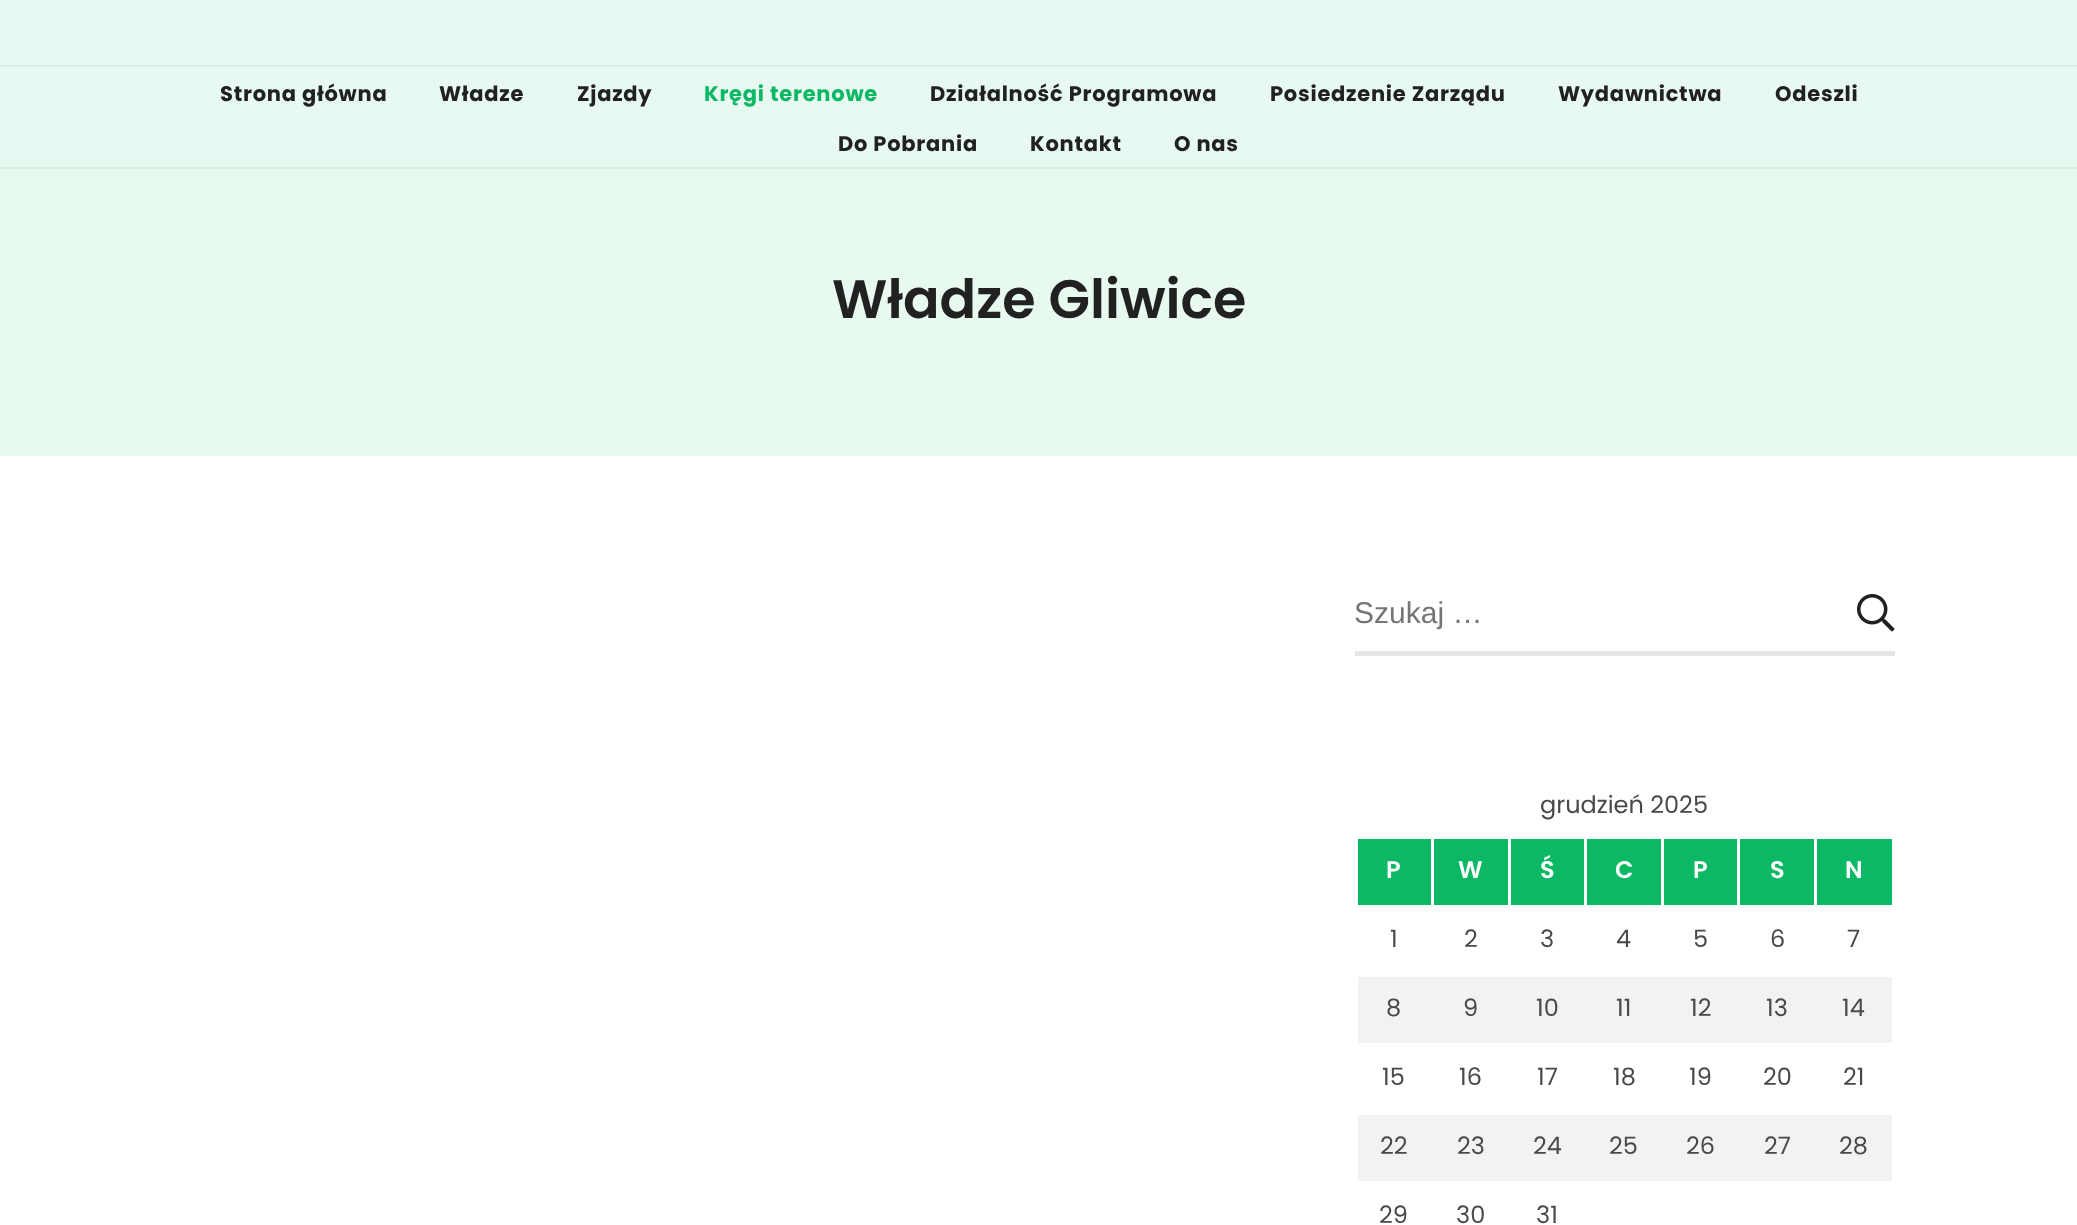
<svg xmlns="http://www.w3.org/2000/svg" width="2077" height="1225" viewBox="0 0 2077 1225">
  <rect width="100%" height="100%" fill="#ffffff"/>
  <rect x="0" y="0" width="2077" height="167" fill="#e7f9f0"/>
  <rect x="0" y="65" width="2077" height="2" fill="#dbede4"/>
  <text x="220" y="101" font-family="Poppins" font-size="21" font-weight="bold" letter-spacing="0.75" fill="#212121">Strona główna</text>
  <text x="439" y="101" font-family="Poppins" font-size="21" font-weight="bold" letter-spacing="0.75" fill="#212121">Władze</text>
  <text x="577" y="101" font-family="Poppins" font-size="21" font-weight="bold" letter-spacing="0.75" fill="#212121">Zjazdy</text>
  <text x="704" y="101" font-family="Poppins" font-size="21" font-weight="bold" letter-spacing="0.75" fill="#0cb863">Kręgi terenowe</text>
  <text x="930" y="101" font-family="Poppins" font-size="21" font-weight="bold" letter-spacing="0.75" fill="#212121">Działalność Programowa</text>
  <text x="1270" y="101" font-family="Poppins" font-size="21" font-weight="bold" letter-spacing="0.75" fill="#212121">Posiedzenie Zarządu</text>
  <text x="1558" y="101" font-family="Poppins" font-size="21" font-weight="bold" letter-spacing="0.75" fill="#212121">Wydawnictwa</text>
  <text x="1775" y="101" font-family="Poppins" font-size="21" font-weight="bold" letter-spacing="0.75" fill="#212121">Odeszli</text>
  <text x="838" y="151" font-family="Poppins" font-size="21" font-weight="bold" letter-spacing="0.75" fill="#212121">Do Pobrania</text>
  <text x="1030" y="151" font-family="Poppins" font-size="21" font-weight="bold" letter-spacing="0.75" fill="#212121">Kontakt</text>
  <text x="1174" y="151" font-family="Poppins" font-size="21" font-weight="bold" letter-spacing="0.75" fill="#212121">O nas</text>
  <rect x="0" y="169" width="2077" height="287" fill="#e8f9f0"/>
  <rect x="0" y="167" width="2077" height="2" fill="#dcede4"/>
  <text x="832" y="318" font-family="Poppins" font-size="54" font-weight="600" fill="#212121">Władze Gliwice</text>
  <rect x="1355" y="651" width="540" height="5" fill="#e6e6e6"/>
  <text x="1354" y="623" font-family="Liberation Sans" font-size="30" fill="#757575">Szukaj …</text>
  <image x="1857" y="594" width="38" height="38" href="img1.png"/>
  <text x="1540" y="813" font-family="Poppins" font-size="24" fill="#494949">grudzień 2025</text>
  <rect x="1358" y="839" width="73" height="66" fill="#0cb863"/>
  <text x="1386" y="878" font-family="Poppins" font-size="24" font-weight="600" fill="#ffffff">P</text>
  <rect x="1434" y="839" width="74" height="66" fill="#0cb863"/>
  <text x="1458" y="878" font-family="Poppins" font-size="24" font-weight="600" fill="#ffffff">W</text>
  <rect x="1511" y="839" width="73" height="66" fill="#0cb863"/>
  <text x="1540" y="878" font-family="Poppins" font-size="24" font-weight="600" fill="#ffffff">Ś</text>
  <rect x="1587" y="839" width="74" height="66" fill="#0cb863"/>
  <text x="1615" y="878" font-family="Poppins" font-size="24" font-weight="600" fill="#ffffff">C</text>
  <rect x="1664" y="839" width="73" height="66" fill="#0cb863"/>
  <text x="1693" y="878" font-family="Poppins" font-size="24" font-weight="600" fill="#ffffff">P</text>
  <rect x="1740" y="839" width="74" height="66" fill="#0cb863"/>
  <text x="1770" y="878" font-family="Poppins" font-size="24" font-weight="600" fill="#ffffff">S</text>
  <rect x="1817" y="839" width="75" height="66" fill="#0cb863"/>
  <text x="1845" y="878" font-family="Poppins" font-size="24" font-weight="600" fill="#ffffff">N</text>
  <text x="1390" y="947" font-family="Poppins" font-size="24" fill="#494949">1</text>
  <text x="1464" y="947" font-family="Poppins" font-size="24" fill="#494949">2</text>
  <text x="1540" y="947" font-family="Poppins" font-size="24" fill="#494949">3</text>
  <text x="1616" y="947" font-family="Poppins" font-size="24" fill="#494949">4</text>
  <text x="1693" y="947" font-family="Poppins" font-size="24" fill="#494949">5</text>
  <text x="1770" y="947" font-family="Poppins" font-size="24" fill="#494949">6</text>
  <text x="1847" y="947" font-family="Poppins" font-size="24" fill="#494949">7</text>
  <rect x="1358" y="977" width="534" height="66" fill="#f2f2f2"/>
  <text x="1386" y="1016" font-family="Poppins" font-size="24" fill="#494949">8</text>
  <text x="1463" y="1016" font-family="Poppins" font-size="24" fill="#494949">9</text>
  <text x="1536" y="1016" font-family="Poppins" font-size="24" fill="#494949">10</text>
  <text x="1616" y="1016" font-family="Poppins" font-size="24" fill="#494949">11</text>
  <text x="1690" y="1016" font-family="Poppins" font-size="24" fill="#494949">12</text>
  <text x="1766" y="1016" font-family="Poppins" font-size="24" fill="#494949">13</text>
  <text x="1842" y="1016" font-family="Poppins" font-size="24" fill="#494949">14</text>
  <text x="1382" y="1085" font-family="Poppins" font-size="24" fill="#494949">15</text>
  <text x="1459" y="1085" font-family="Poppins" font-size="24" fill="#494949">16</text>
  <text x="1537" y="1085" font-family="Poppins" font-size="24" fill="#494949">17</text>
  <text x="1613" y="1085" font-family="Poppins" font-size="24" fill="#494949">18</text>
  <text x="1689" y="1085" font-family="Poppins" font-size="24" fill="#494949">19</text>
  <text x="1763" y="1085" font-family="Poppins" font-size="24" fill="#494949">20</text>
  <text x="1843" y="1085" font-family="Poppins" font-size="24" fill="#494949">21</text>
  <rect x="1358" y="1115" width="534" height="66" fill="#f2f2f2"/>
  <text x="1380" y="1154" font-family="Poppins" font-size="24" fill="#494949">22</text>
  <text x="1457" y="1154" font-family="Poppins" font-size="24" fill="#494949">23</text>
  <text x="1533" y="1154" font-family="Poppins" font-size="24" fill="#494949">24</text>
  <text x="1609" y="1154" font-family="Poppins" font-size="24" fill="#494949">25</text>
  <text x="1686" y="1154" font-family="Poppins" font-size="24" fill="#494949">26</text>
  <text x="1764" y="1154" font-family="Poppins" font-size="24" fill="#494949">27</text>
  <text x="1839" y="1154" font-family="Poppins" font-size="24" fill="#494949">28</text>
  <text x="1379" y="1223" font-family="Poppins" font-size="24" fill="#494949">29</text>
  <text x="1456" y="1223" font-family="Poppins" font-size="24" fill="#494949">30</text>
  <text x="1536" y="1223" font-family="Poppins" font-size="24" fill="#494949">31</text>
</svg>
